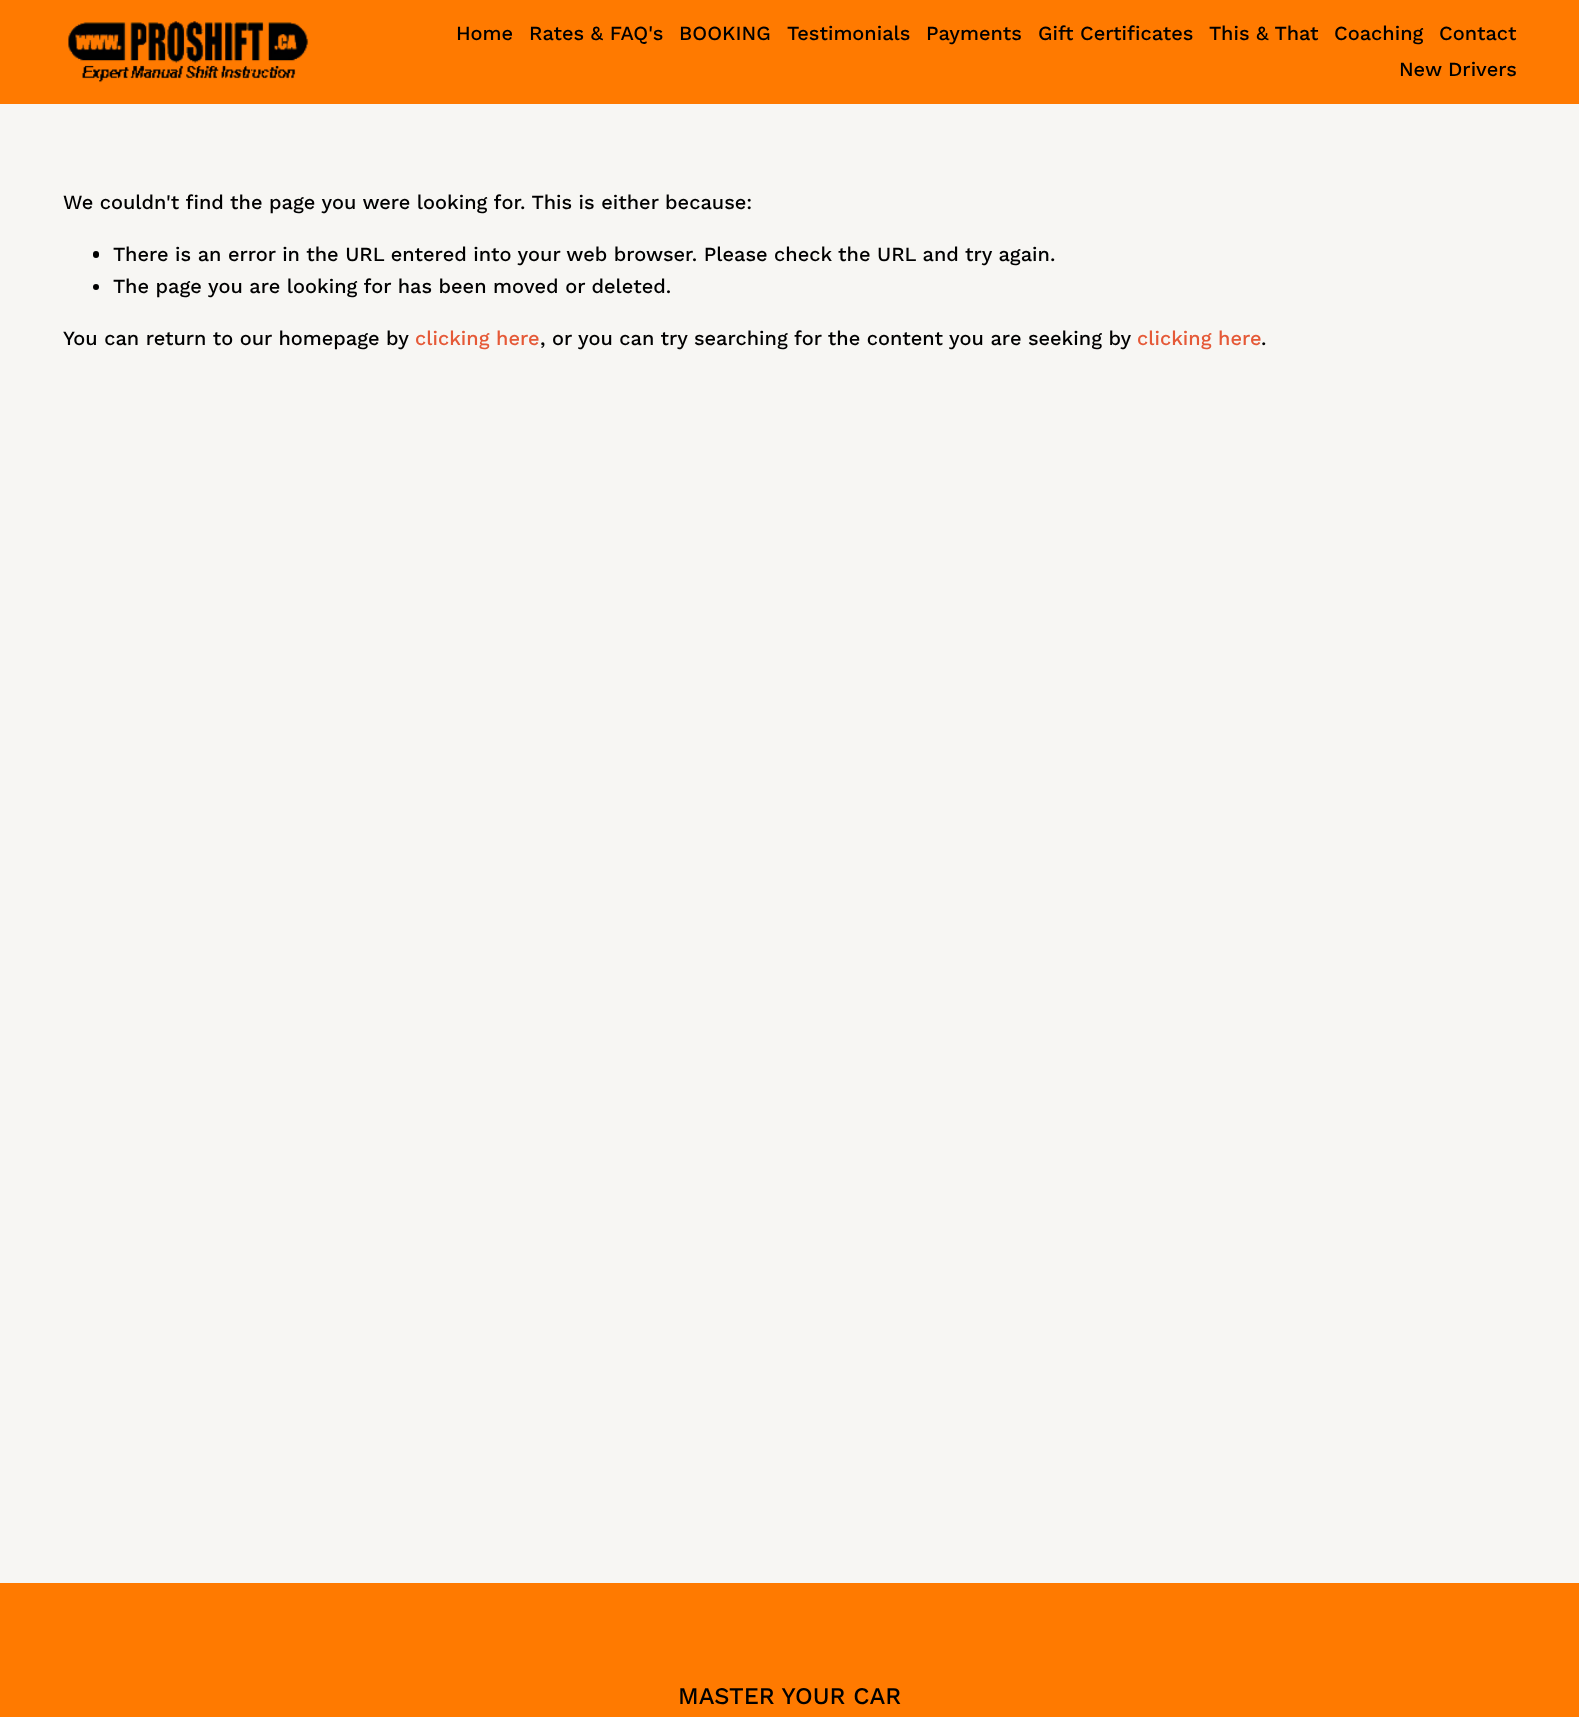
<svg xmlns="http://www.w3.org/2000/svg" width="1579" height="1717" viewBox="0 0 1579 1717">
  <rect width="100%" height="100%" fill="#f7f6f3"/>
  <rect x="0" y="0" width="1579" height="104" fill="#ff7a00"/>
  <image x="68" y="21" width="241" height="62" href="img1.png"/>
  <text x="456" y="40" font-family="Work Sans" font-size="20" font-weight="500" fill="#000000">Home</text>
  <text x="529" y="40" font-family="Work Sans" font-size="20" font-weight="500" fill="#000000">Rates &amp; FAQ's</text>
  <text x="679" y="40" font-family="Work Sans" font-size="20" font-weight="500" fill="#000000">BOOKING</text>
  <text x="787" y="40" font-family="Work Sans" font-size="20" font-weight="500" fill="#000000">Testimonials</text>
  <text x="926" y="40" font-family="Work Sans" font-size="20" font-weight="500" fill="#000000">Payments</text>
  <text x="1038" y="40" font-family="Work Sans" font-size="20" font-weight="500" fill="#000000">Gift Certificates</text>
  <text x="1209" y="40" font-family="Work Sans" font-size="20" font-weight="500" fill="#000000">This &amp; That</text>
  <text x="1334" y="40" font-family="Work Sans" font-size="20" font-weight="500" fill="#000000">Coaching</text>
  <text x="1439" y="40" font-family="Work Sans" font-size="20" font-weight="500" fill="#000000">Contact</text>
  <text x="1399" y="76" font-family="Work Sans" font-size="20" font-weight="500" fill="#000000">New Drivers</text>
  <text x="63" y="209" font-family="Work Sans" font-size="20" font-weight="500" fill="#000000">We couldn't find the page you were looking for. This is either because:</text>
  <rect x="93" y="251" width="6" height="7" rx="3" fill="#000000"/>
  <text x="113" y="261" font-family="Work Sans" font-size="20" font-weight="500" fill="#000000">There is an error in the URL entered into your web browser. Please check the URL and try again.</text>
  <circle cx="96" cy="287" r="3" fill="#000000"/>
  <text x="113" y="293" font-family="Work Sans" font-size="20" font-weight="500" fill="#000000">The page you are looking for has been moved or deleted.</text>
  <text x="63" y="345" font-family="Work Sans" font-size="20" font-weight="500" fill="#000000">You can return to our homepage by</text>
  <text x="415" y="345" font-family="Work Sans" font-size="20" font-weight="500" fill="#e55937">clicking here</text>
  <text x="540" y="345" font-family="Work Sans" font-size="20" font-weight="500" fill="#000000">, or you can try searching for the content you are seeking by</text>
  <text x="1137" y="345" font-family="Work Sans" font-size="20" font-weight="500" fill="#e55937">clicking here</text>
  <text x="1261" y="345" font-family="Work Sans" font-size="20" font-weight="500" fill="#000000">.</text>
  <rect x="0" y="1583" width="1579" height="134" fill="#ff7a00"/>
  <text x="678" y="1704" font-family="Work Sans" font-size="23.75" font-weight="500" fill="#000000">MASTER YOUR CAR</text>
</svg>
